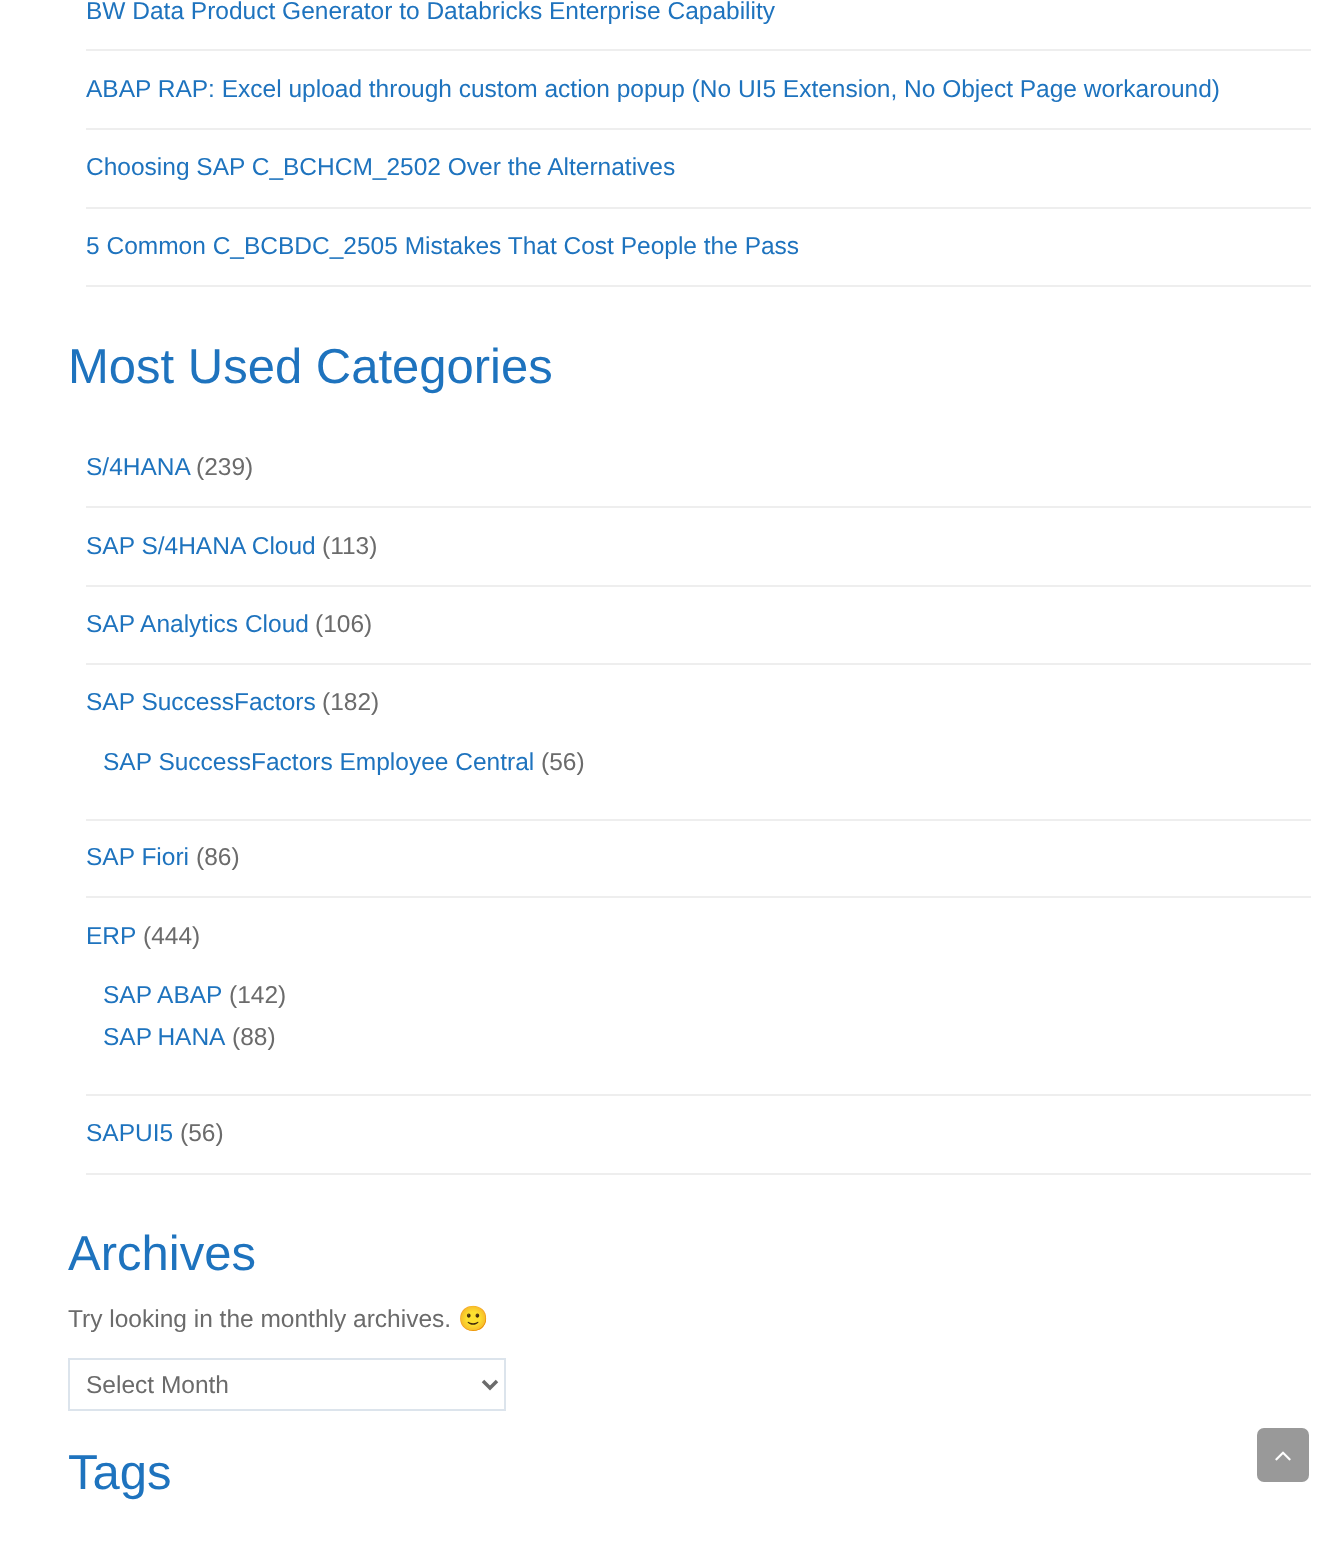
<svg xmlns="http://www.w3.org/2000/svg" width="1343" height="1542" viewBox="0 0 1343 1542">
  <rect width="100%" height="100%" fill="#ffffff"/>
  <rect x="86" y="49" width="1225" height="2" fill="#eeeeee"/>
  <text x="86" y="19" font-family="Liberation Sans" font-size="24.5" fill="#1e73be">BW Data Product Generator to Databricks Enterprise Capability</text>
  <rect x="86" y="128" width="1225" height="2" fill="#eeeeee"/>
  <text x="86" y="97" font-family="Liberation Sans" font-size="24.5" fill="#1e73be">ABAP RAP: Excel upload through custom action popup (No UI5 Extension, No Object Page workaround)</text>
  <rect x="86" y="207" width="1225" height="2" fill="#eeeeee"/>
  <text x="86" y="175" font-family="Liberation Sans" font-size="24.5" fill="#1e73be">Choosing SAP C_BCHCM_2502 Over the Alternatives</text>
  <rect x="86" y="285" width="1225" height="2" fill="#eeeeee"/>
  <text x="86" y="254" font-family="Liberation Sans" font-size="24.5" fill="#1e73be">5 Common C_BCBDC_2505 Mistakes That Cost People the Pass</text>
  <text x="68" y="383" font-family="Liberation Sans" font-size="49" fill="#1e73be">Most Used Categories</text>
  <rect x="86" y="506" width="1225" height="2" fill="#eeeeee"/>
  <text x="86" y="475" font-family="Liberation Sans" font-size="24.5" fill="#1e73be">S/4HANA</text>
  <text x="196" y="475" font-family="Liberation Sans" font-size="24.5" fill="#6b6b6b">(239)</text>
  <rect x="86" y="585" width="1225" height="2" fill="#eeeeee"/>
  <text x="86" y="554" font-family="Liberation Sans" font-size="24.5" fill="#1e73be">SAP S/4HANA Cloud</text>
  <text x="322" y="554" font-family="Liberation Sans" font-size="24.5" fill="#6b6b6b">(113)</text>
  <rect x="86" y="663" width="1225" height="2" fill="#eeeeee"/>
  <text x="86" y="632" font-family="Liberation Sans" font-size="24.5" fill="#1e73be">SAP Analytics Cloud</text>
  <text x="315" y="632" font-family="Liberation Sans" font-size="24.5" fill="#6b6b6b">(106)</text>
  <rect x="86" y="819" width="1225" height="2" fill="#eeeeee"/>
  <text x="86" y="710" font-family="Liberation Sans" font-size="24.5" fill="#1e73be">SAP SuccessFactors</text>
  <text x="322" y="710" font-family="Liberation Sans" font-size="24.5" fill="#6b6b6b">(182)</text>
  <text x="103" y="770" font-family="Liberation Sans" font-size="24.5" fill="#1e73be">SAP SuccessFactors Employee Central</text>
  <text x="541" y="770" font-family="Liberation Sans" font-size="24.5" fill="#6b6b6b">(56)</text>
  <rect x="86" y="896" width="1225" height="2" fill="#eeeeee"/>
  <text x="86" y="865" font-family="Liberation Sans" font-size="24.5" fill="#1e73be">SAP Fiori</text>
  <text x="196" y="865" font-family="Liberation Sans" font-size="24.5" fill="#6b6b6b">(86)</text>
  <rect x="86" y="1094" width="1225" height="2" fill="#eeeeee"/>
  <text x="86" y="944" font-family="Liberation Sans" font-size="24.5" fill="#1e73be">ERP</text>
  <text x="143" y="944" font-family="Liberation Sans" font-size="24.5" fill="#6b6b6b">(444)</text>
  <text x="103" y="1003" font-family="Liberation Sans" font-size="24.5" fill="#1e73be">SAP ABAP</text>
  <text x="229" y="1003" font-family="Liberation Sans" font-size="24.5" fill="#6b6b6b">(142)</text>
  <text x="103" y="1045" word-spacing="-1" font-family="Liberation Sans" font-size="24.5" fill="#1e73be">SAP HANA</text>
  <text x="232" y="1045" font-family="Liberation Sans" font-size="24.5" fill="#6b6b6b">(88)</text>
  <rect x="86" y="1173" width="1225" height="2" fill="#eeeeee"/>
  <text x="86" y="1141" font-family="Liberation Sans" font-size="24.5" fill="#1e73be">SAPUI5</text>
  <text x="180" y="1141" font-family="Liberation Sans" font-size="24.5" fill="#6b6b6b">(56)</text>
  <text x="68" y="1270" font-family="Liberation Sans" font-size="49" fill="#1e73be">Archives</text>
  <text x="68" y="1327" font-family="Liberation Sans" font-size="24.5" fill="#6b6b6b">Try looking in the monthly archives.</text>
  <text x="458" y="1327" font-family="Noto Color Emoji" font-size="24.5" fill="#6b6b6b">🙂</text>
  <rect x="69" y="1359" width="436" height="51" fill="none" stroke="#dce4ec" stroke-width="2"/>
  <path d="M483 1381L490 1388L497 1381" fill="none" stroke="#6b6b6b" stroke-width="3.5"/>
  <text x="86" y="1393" font-family="Liberation Sans" font-size="24.5" fill="#6b6b6b">Select Month</text>
  <text x="68" y="1489" font-family="Liberation Sans" font-size="49" fill="#1e73be">Tags</text>
  <rect x="1257" y="1428" width="52" height="54" rx="7" fill="#999999"/>
  <image x="1275" y="1451" width="16" height="10" href="img1.png"/>
</svg>
